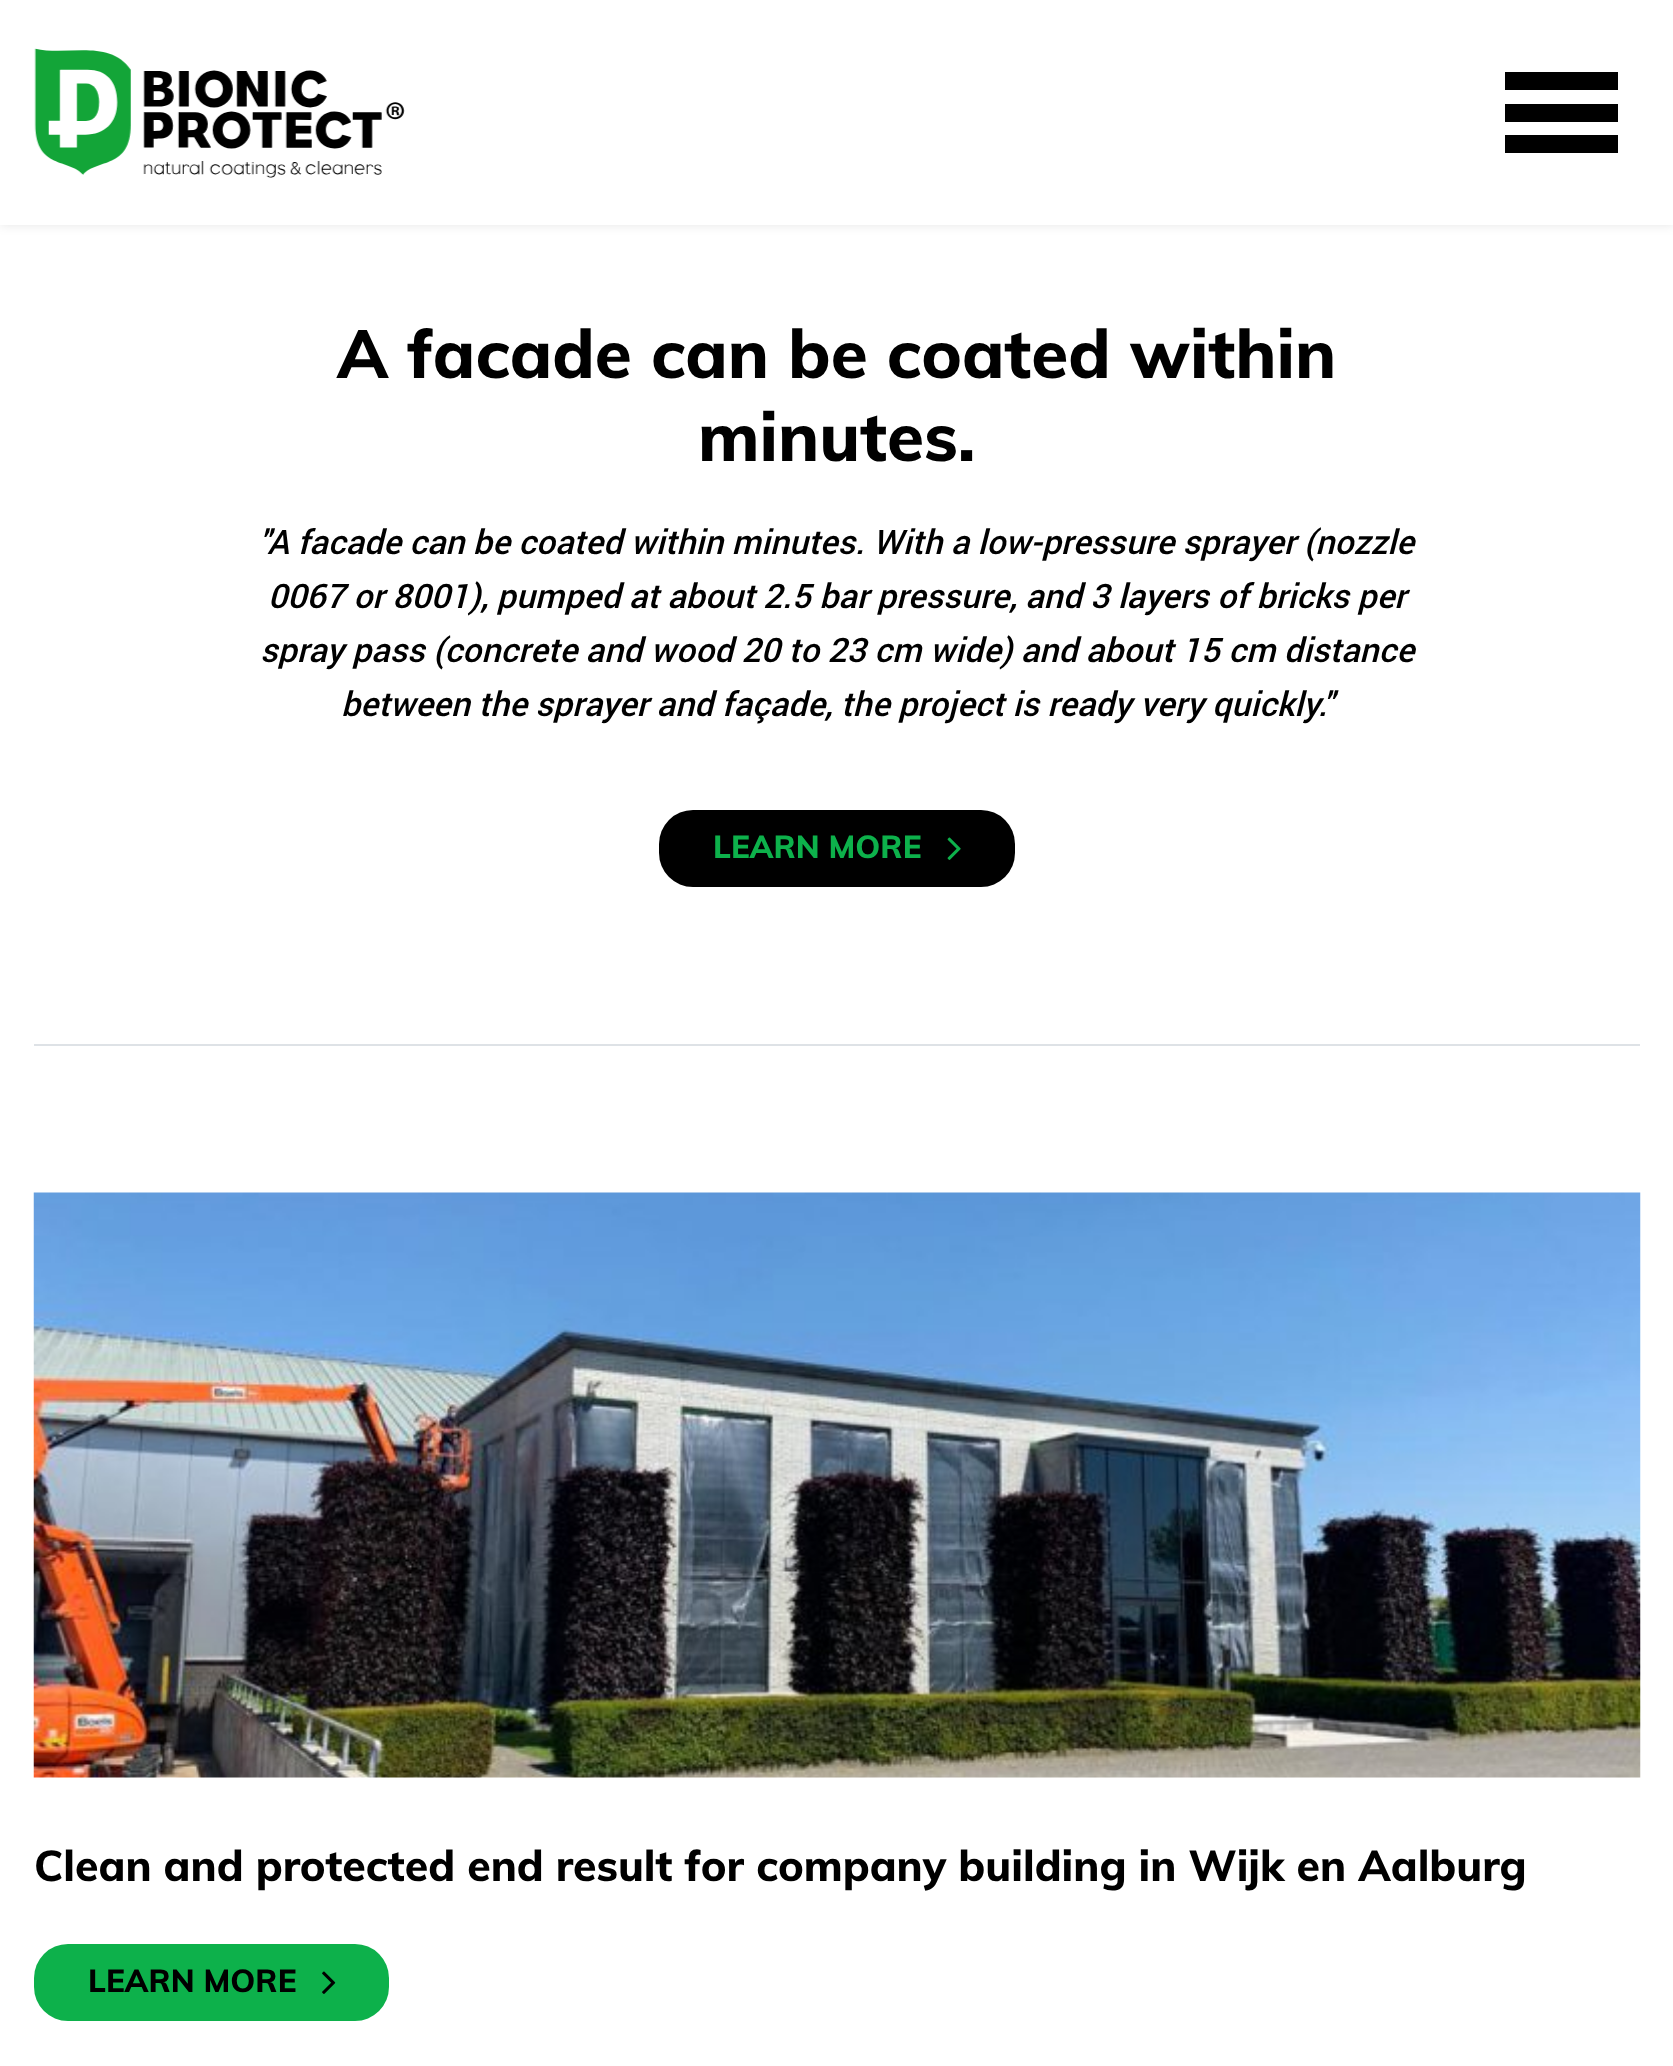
<svg xmlns="http://www.w3.org/2000/svg" width="1673" height="2066" viewBox="0 0 1673 2066">
  <defs>
    <filter id="blur1" x="-50%" y="-200%" width="200%" height="500%"><feGaussianBlur stdDeviation="5.5"/></filter>
  </defs>
  <rect width="100%" height="100%" fill="#ffffff"/>
  <rect x="0" y="0" width="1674" height="225" fill="#000000" fill-opacity="0.1" filter="url(#blur1)"/>
  <rect x="0" y="0" width="1673" height="225" fill="#ffffff"/>
  <image x="34" y="48" width="371" height="130" href="img1.png"/>
  <rect x="1505" y="104" width="113" height="18" fill="#000000"/>
  <rect x="1505" y="72" width="113" height="18" fill="#000000"/>
  <rect x="1505" y="135" width="113" height="18" fill="#000000"/>
  <text x="337" y="378" font-family="Muli" font-size="67.5" font-weight="800" fill="#000000">A facade can be coated within</text>
  <text x="698" y="461" font-family="Muli" font-size="67.5" font-weight="800" fill="#000000">minutes.</text>
  <text x="259" y="554" font-family="Roboto" font-size="33.75" font-weight="500" font-style="italic" fill="#000000">''A facade can be coated within minutes. With a low-pressure sprayer (nozzle</text>
  <text x="268" y="608" font-family="Roboto" font-size="33.75" font-weight="500" font-style="italic" fill="#000000">0067 or 8001), pumped at about 2.5 bar pressure, and 3 layers of bricks per</text>
  <text x="260" y="662" font-family="Roboto" font-size="33.75" font-weight="500" font-style="italic" fill="#000000">spray pass (concrete and wood 20 to 23 cm wide) and about 15 cm distance</text>
  <text x="341" y="716" font-family="Roboto" font-size="33.75" font-weight="500" font-style="italic" fill="#000000">between the sprayer and façade, the project is ready very quickly.''</text>
  <rect x="659" y="810" width="356" height="77" rx="34" fill="#000000"/>
  <text x="713" y="858" font-family="Muli" font-size="31.5" font-weight="800" fill="#0db14b">LEARN MORE</text>
  <image x="947" y="837" width="14" height="23" href="img2.png"/>
  <rect x="34" y="1044" width="1606" height="2" fill="#dee2e6"/>
  <image x="33" y="1192" width="1608" height="586" href="img3.png"/>
  <text x="34" y="1881" font-family="Muli" font-size="42.75" font-weight="800" fill="#000000">Clean and protected end result for company building in Wijk en Aalburg</text>
  <rect x="34" y="1944" width="355" height="77" rx="34" fill="#0db14b"/>
  <text x="88" y="1992" font-family="Muli" font-size="31.5" font-weight="800" fill="#000000">LEARN MORE</text>
  <image x="322" y="1971" width="14" height="23" href="img4.png"/>
</svg>
